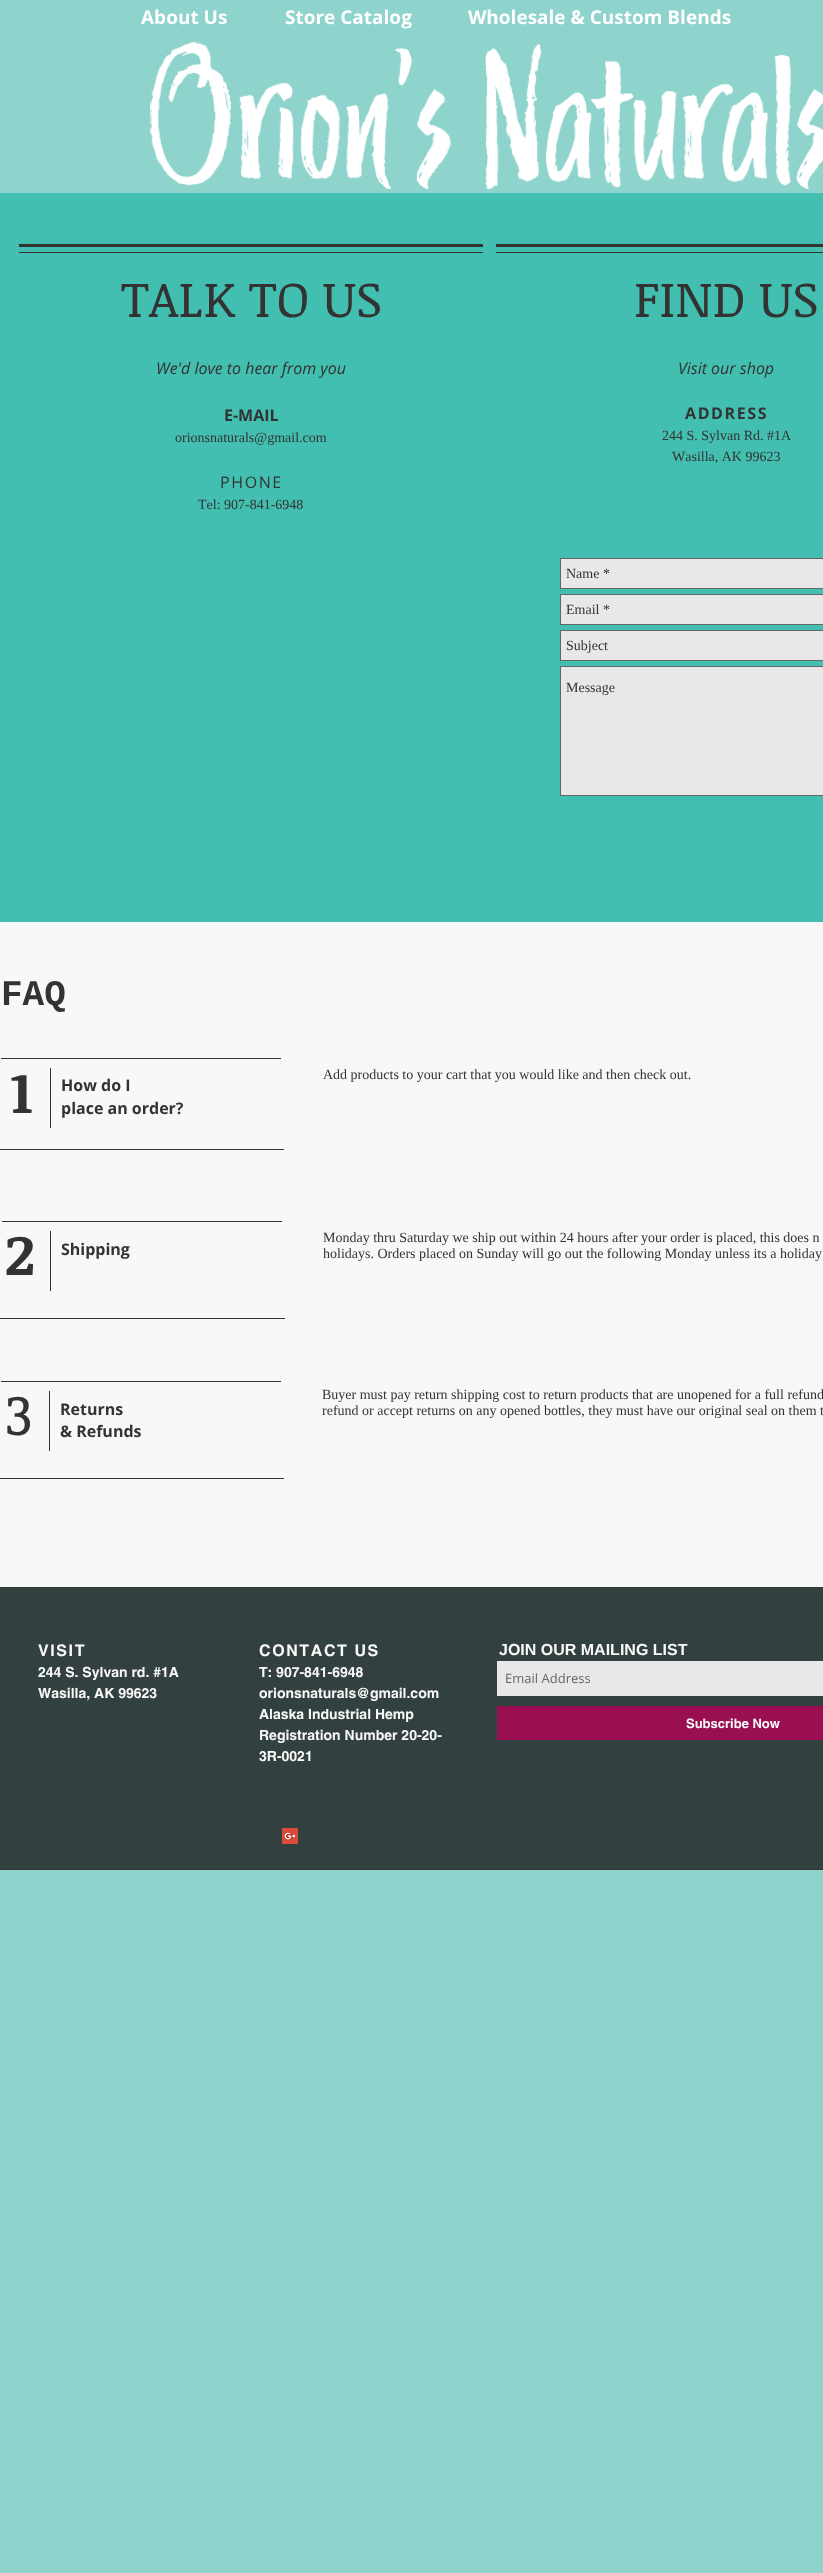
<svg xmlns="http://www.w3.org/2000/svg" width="823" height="2573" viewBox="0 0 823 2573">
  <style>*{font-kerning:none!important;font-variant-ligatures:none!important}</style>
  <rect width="100%" height="100%" fill="#8fd4cc"/>
  <text x="141" y="24" font-family="Open Sans" font-size="19" font-weight="bold" fill="#ffffff">About Us</text>
  <text x="285" y="24" font-family="Open Sans" font-size="19" font-weight="bold" fill="#ffffff">Store Catalog</text>
  <text x="468" y="24" font-family="Open Sans" font-size="19" font-weight="bold" fill="#ffffff">Wholesale &amp; Custom Blends</text>
  <image x="150" y="42" width="673" height="147" href="img1.png"/>
  <rect x="0" y="193" width="823" height="729" fill="#42bfb0"/>
  <rect x="19" y="244" width="464" height="3" fill="#333333"/>
  <rect x="19" y="252" width="464" height="1" fill="#333333"/>
  <rect x="496" y="244" width="327" height="3" fill="#333333"/>
  <rect x="496" y="252" width="327" height="1" fill="#333333"/>
  <text x="121" y="317" font-family="Noticia Text" font-size="50" fill="#333333">TALK TO US</text>
  <text x="156" y="374" font-family="Open Sans" font-size="16" font-style="italic" fill="#333333">We'd love to hear from you</text>
  <text x="224" y="421" font-family="Open Sans" font-size="16" font-weight="bold" fill="#333333">E-MAIL</text>
  <text x="175" y="442" font-family="Liberation Serif" font-size="14" fill="#333333">orionsnaturals@gmail.com</text>
  <text x="220" y="488" font-family="Open Sans" font-size="16" letter-spacing="1.6" fill="#333333">PHONE</text>
  <text x="198" y="509" font-family="Liberation Serif" font-size="14" fill="#333333">Tel: 907-841-6948</text>
  <text x="634" y="317" font-family="Noticia Text" font-size="50" fill="#333333">FIND US</text>
  <text x="678" y="374" font-family="Open Sans" font-size="16" font-style="italic" fill="#333333">Visit our shop</text>
  <text x="685" y="419" font-family="Open Sans" font-size="16" font-weight="bold" letter-spacing="1.6" fill="#333333">ADDRESS</text>
  <text x="662" y="440" font-family="Liberation Serif" font-size="14" fill="#333333">244 S. Sylvan Rd. #1A</text>
  <text x="672" y="461" font-family="Liberation Serif" font-size="14" fill="#333333">Wasilla, AK 99623</text>
  <rect x="560.5" y="558.5" width="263" height="30" fill="#e8e8e8" stroke="#656565"/>
  <text x="566" y="578" font-family="Liberation Serif" font-size="14" fill="#333333">Name *</text>
  <rect x="560.5" y="594.5" width="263" height="30" fill="#e8e8e8" stroke="#656565"/>
  <text x="566" y="614" font-family="Liberation Serif" font-size="14" fill="#333333">Email *</text>
  <rect x="560.5" y="630.5" width="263" height="30" fill="#e8e8e8" stroke="#656565"/>
  <text x="566" y="650" font-family="Liberation Serif" font-size="14" fill="#333333">Subject</text>
  <rect x="560.5" y="666.5" width="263" height="129" fill="#e8e8e8" stroke="#656565"/>
  <text x="566" y="692" font-family="Liberation Serif" font-size="14" fill="#333333">Message</text>
  <rect x="0" y="922" width="823" height="665" fill="#f8f8f8"/>
  <text x="1" y="1005" font-family="Liberation Mono" font-size="36" font-weight="bold" fill="#333333">FAQ</text>
  <rect x="1" y="1058" width="280" height="1" fill="#333333"/>
  <text x="10" y="1113" font-family="Noticia Text" font-size="57" font-weight="bold" fill="#333333">1</text>
  <rect x="50" y="1068" width="1" height="60" fill="#333333"/>
  <text x="61" y="1091" font-family="Open Sans" font-size="16" font-weight="bold" fill="#333333">How do I</text>
  <text x="61" y="1114" font-family="Open Sans" font-size="16" font-weight="bold" fill="#333333">place an order?</text>
  <text x="323" y="1079" font-family="Liberation Serif" font-size="14" fill="#333333">Add products to your cart that you would like and then check out.</text>
  <rect x="0" y="1149" width="284" height="1" fill="#333333"/>
  <rect x="2" y="1221" width="280" height="1" fill="#333333"/>
  <text x="5" y="1275" font-family="Noticia Text" font-size="57" font-weight="bold" fill="#333333">2</text>
  <rect x="50" y="1231" width="1" height="60" fill="#333333"/>
  <text x="61" y="1255" font-family="Open Sans" font-size="16" font-weight="bold" fill="#333333">Shipping</text>
  <text x="323" y="1242" font-family="Liberation Serif" font-size="14" fill="#333333">Monday thru Saturday we ship out within 24 hours after your order is placed, this does n</text>
  <text x="323" y="1258" font-family="Liberation Serif" font-size="14" fill="#333333">holidays. Orders placed on Sunday will go out the following Monday unless its a holiday</text>
  <rect x="0" y="1318" width="285" height="1" fill="#333333"/>
  <rect x="1" y="1381" width="280" height="1" fill="#333333"/>
  <text x="5" y="1435" font-family="Noticia Text" font-size="57" fill="#333333">3</text>
  <rect x="49" y="1391" width="1" height="60" fill="#333333"/>
  <text x="60" y="1415" font-family="Open Sans" font-size="16" font-weight="bold" fill="#333333">Returns</text>
  <text x="60" y="1437" font-family="Open Sans" font-size="16" font-weight="bold" fill="#333333">&amp; Refunds</text>
  <text x="322" y="1399" font-family="Liberation Serif" font-size="14" fill="#333333">Buyer must pay return shipping cost to return products that are unopened for a full refund</text>
  <text x="322" y="1415" font-family="Liberation Serif" font-size="14" fill="#333333">refund or accept returns on any opened bottles, they must have our original seal on them t</text>
  <rect x="0" y="1478" width="284" height="1" fill="#333333"/>
  <rect x="0" y="1588" width="823" height="281" fill="#32413f"/>
  <rect x="0" y="1587" width="823" height="1" fill="#333333"/>
  <rect x="0" y="1869" width="823" height="1" fill="#333333"/>
  <text x="38" y="1656" font-family="helvetica" font-size="16" font-weight="bold" letter-spacing="1.6" fill="#f8f8f8">VISIT</text>
  <text x="38" y="1677" font-family="helvetica" font-size="14" font-weight="bold" fill="#f8f8f8">244 S. Sylvan rd. #1A</text>
  <text x="38" y="1698" font-family="helvetica" font-size="14" font-weight="bold" fill="#f8f8f8">Wasilla, AK 99623</text>
  <text x="259" y="1656" font-family="helvetica" font-size="16" font-weight="bold" letter-spacing="1.6" fill="#f8f8f8">CONTACT US</text>
  <text x="259" y="1677" font-family="helvetica" font-size="14" font-weight="bold" fill="#f8f8f8">T: 907-841-6948</text>
  <text x="259" y="1698" font-family="helvetica" font-size="14" font-weight="bold" fill="#f8f8f8">orionsnaturals@gmail.com</text>
  <text x="259" y="1719" font-family="helvetica" font-size="14" font-weight="bold" fill="#f8f8f8">Alaska Industrial Hemp</text>
  <text x="259" y="1740" font-family="helvetica" font-size="14" font-weight="bold" fill="#f8f8f8">Registration Number 20-20-</text>
  <text x="259" y="1761" font-family="helvetica" font-size="14" font-weight="bold" fill="#f8f8f8">3R-0021</text>
  <text x="499" y="1655" font-family="Liberation Sans" font-size="16" font-weight="bold" fill="#f8f8f8">JOIN OUR MAILING LIST</text>
  <rect x="497" y="1661" width="326" height="35" fill="#e8e8e8"/>
  <text x="505" y="1683" font-family="Open Sans" font-size="13" fill="#656565">Email Address</text>
  <rect x="497" y="1706" width="326" height="34" fill="#990f51"/>
  <text x="686" y="1728" font-family="helvetica" font-size="13" font-weight="bold" fill="#f8f8f8">Subscribe Now</text>
  <image x="282" y="1828" width="16" height="16" href="img2.png"/>
</svg>
